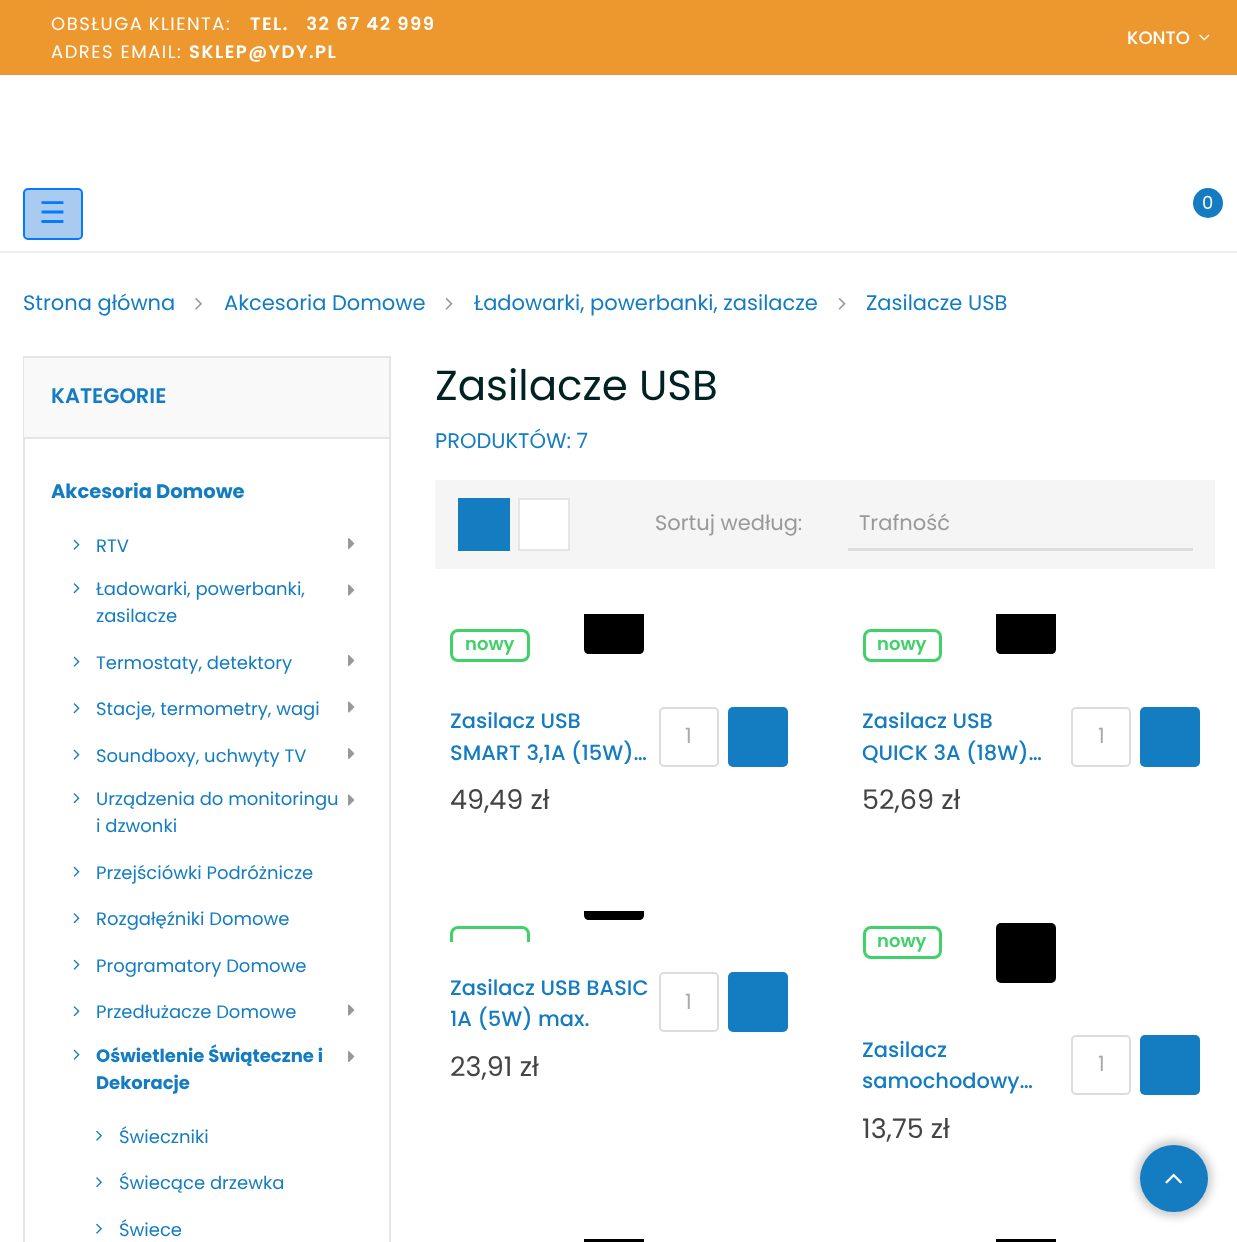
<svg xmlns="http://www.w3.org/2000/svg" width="1237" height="1242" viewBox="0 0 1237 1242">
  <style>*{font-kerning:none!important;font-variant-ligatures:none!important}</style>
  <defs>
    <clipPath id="clip1"><rect x="435" y="911" width="368" height="31"/></clipPath>
    <filter id="blur1" x="-50%" y="-200%" width="200%" height="500%"><feGaussianBlur stdDeviation="4"/></filter>
  </defs>
  <rect width="100%" height="100%" fill="#ffffff"/>
  <rect x="0" y="0" width="1237" height="75" fill="#ed982f"/>
  <text x="51" y="30" word-spacing="-1" font-family="Poppins" font-size="18" letter-spacing="1.5" fill="#ffffff">OBSŁUGA KLIENTA: </text>
  <text x="250" y="30" font-family="Poppins" font-size="18" font-weight="600" letter-spacing="1.5" fill="#ffffff" xml:space="preserve">TEL.   32 67 42 999</text>
  <text x="51" y="58" font-family="Poppins" font-size="18" letter-spacing="1.5" fill="#ffffff">ADRES EMAIL:</text>
  <text x="189" y="58" font-family="Poppins" font-size="18" font-weight="600" letter-spacing="1.5" fill="#ffffff">SKLEP@YDY.PL</text>
  <text x="1127" y="44" font-family="Poppins" font-size="18" font-weight="500" fill="#ffffff">KONTO</text>
  <image x="1199" y="34" width="11" height="7" href="img1.png"/>
  <rect x="0" y="251" width="1237" height="2" fill="#eeeeee"/>
  <rect x="24" y="189" width="58" height="50" rx="4" fill="#aacbf0" stroke="#057aff" stroke-width="2"/>
  <text x="39" y="223" font-family="DejaVu Sans" font-size="30" fill="#057aff">☰</text>
  <circle cx="1208" cy="203" r="15" fill="#147cc1"/>
  <text x="1202" y="209" font-family="Poppins" font-size="18" fill="#ffffff">0</text>
  <text x="23" y="310" font-family="Poppins" font-size="21" fill="#147cc1">Strona główna</text>
  <image x="195" y="298" width="7" height="12" href="img2.png"/>
  <text x="224" y="310" font-family="Poppins" font-size="21" fill="#147cc1">Akcesoria Domowe</text>
  <image x="445" y="298" width="8" height="12" href="img3.png"/>
  <text x="474" y="310" font-family="Poppins" font-size="21" fill="#147cc1">Ładowarki, powerbanki, zasilacze</text>
  <image x="838" y="298" width="8" height="12" href="img3.png"/>
  <text x="866" y="310" font-family="Poppins" font-size="21" fill="#147cc1">Zasilacze USB</text>
  <rect x="389" y="356" width="2" height="886" fill="#e5e5e5"/>
  <rect x="23" y="356" width="2" height="886" fill="#e5e5e5"/>
  <rect x="24" y="358" width="365" height="79" fill="#f9f9f9"/>
  <rect x="24" y="356" width="365" height="2" fill="#e5e5e5"/>
  <rect x="24" y="437" width="365" height="2" fill="#e5e5e5"/>
  <text x="51" y="403" font-family="Poppins" font-size="21" font-weight="600" fill="#147cc1">KATEGORIE</text>
  <text x="51" y="498" font-family="Poppins" font-size="19.5" font-weight="bold" fill="#147cc1">Akcesoria Domowe</text>
  <image x="73" y="539" width="7" height="11" href="img4.png"/>
  <text x="96" y="552" font-family="Poppins" font-size="18" fill="#147cc1">RTV</text>
  <image x="348" y="538" width="7" height="11" href="img5.png"/>
  <image x="73" y="583" width="7" height="11" href="img6.png"/>
  <text x="96" y="595" font-family="Poppins" font-size="18" fill="#147cc1">Ładowarki, powerbanki,</text>
  <text x="96" y="622" font-family="Poppins" font-size="18" fill="#147cc1">zasilacze</text>
  <image x="348" y="584" width="7" height="12" href="img7.png"/>
  <image x="73" y="656" width="7" height="11" href="img4.png"/>
  <text x="96" y="669" font-family="Poppins" font-size="18" fill="#147cc1">Termostaty, detektory</text>
  <image x="348" y="655" width="7" height="11" href="img5.png"/>
  <image x="73" y="703" width="7" height="11" href="img6.png"/>
  <text x="96" y="715" font-family="Poppins" font-size="18" fill="#147cc1">Stacje, termometry, wagi</text>
  <image x="348" y="701" width="7" height="12" href="img7.png"/>
  <image x="73" y="749" width="7" height="11" href="img4.png"/>
  <text x="96" y="762" font-family="Poppins" font-size="18" fill="#147cc1">Soundboxy, uchwyty TV</text>
  <image x="348" y="748" width="7" height="11" href="img5.png"/>
  <image x="73" y="793" width="7" height="11" href="img6.png"/>
  <text x="96" y="805" font-family="Poppins" font-size="18" fill="#147cc1">Urządzenia do monitoringu</text>
  <text x="96" y="832" font-family="Poppins" font-size="18" fill="#147cc1">i dzwonki</text>
  <image x="348" y="794" width="7" height="12" href="img7.png"/>
  <image x="73" y="866" width="7" height="11" href="img4.png"/>
  <text x="96" y="879" font-family="Poppins" font-size="18" fill="#147cc1">Przejściówki Podróżnicze</text>
  <image x="73" y="913" width="7" height="11" href="img6.png"/>
  <text x="96" y="925" font-family="Poppins" font-size="18" fill="#147cc1">Rozgałęźniki Domowe</text>
  <image x="73" y="959" width="7" height="11" href="img4.png"/>
  <text x="96" y="972" font-family="Poppins" font-size="18" fill="#147cc1">Programatory Domowe</text>
  <image x="73" y="1006" width="7" height="11" href="img6.png"/>
  <text x="96" y="1018" font-family="Poppins" font-size="18" fill="#147cc1">Przedłużacze Domowe</text>
  <image x="348" y="1004" width="7" height="12" href="img7.png"/>
  <image x="73" y="1049" width="7" height="11" href="img4.png"/>
  <text x="96" y="1062" font-family="Poppins" font-size="18" font-weight="bold" fill="#147cc1">Oświetlenie Świąteczne i</text>
  <text x="96" y="1089" font-family="Poppins" font-size="18" font-weight="bold" fill="#147cc1">Dekoracje</text>
  <image x="348" y="1051" width="7" height="11" href="img5.png"/>
  <image x="96" y="1130" width="6" height="11" href="img8.png"/>
  <text x="119" y="1143" font-family="Poppins" font-size="18" fill="#147cc1">Świeczniki</text>
  <image x="96" y="1177" width="6" height="11" href="img9.png"/>
  <text x="119" y="1189" font-family="Poppins" font-size="18" fill="#147cc1">Świecące drzewka</text>
  <image x="96" y="1223" width="6" height="11" href="img8.png"/>
  <text x="119" y="1236" font-family="Poppins" font-size="18" fill="#147cc1">Świece</text>
  <text x="435" y="400" font-family="Poppins" font-size="42" fill="#002222">Zasilacze USB</text>
  <text x="435" y="448" font-family="Poppins" font-size="21" fill="#147cc1">PRODUKTÓW: 7</text>
  <rect x="435" y="480" width="780" height="89" fill="#f5f5f5"/>
  <rect x="458" y="498" width="52" height="53" fill="#147cc1"/>
  <rect x="519" y="499" width="50" height="51" fill="#ffffff" stroke="#e5e5e5" stroke-width="2"/>
  <text x="655" y="530" font-family="Poppins" font-size="21" fill="#999999">Sortuj według:</text>
  <rect x="848" y="548" width="345" height="3" fill="#dddddd"/>
  <text x="859" y="530" font-family="Poppins" font-size="21" fill="#999999">Trafność</text>
  <rect x="451.5" y="630.5" width="77" height="30" rx="6.5" fill="none" stroke="#41d169" stroke-width="3"/>
  <text x="465" y="650" font-family="Poppins" font-size="18" font-weight="600" fill="#41d169">nowy</text>
  <path d="M584 614H644V649C644 652 642 654 639 654H589C586 654 584 652 584 649Z" fill="#000000"/>
  <text x="450" y="728" font-family="Poppins" font-size="21" font-weight="500" fill="#147cc1">Zasilacz USB</text>
  <text x="450" y="760" font-family="Poppins" font-size="21" font-weight="500" fill="#147cc1">SMART 3,1A (15W)…</text>
  <rect x="660" y="708" width="58" height="58" rx="4" fill="none" stroke="#dcdcdc" stroke-width="2"/>
  <text x="685" y="743" font-family="Poppins" font-size="21" fill="#acaaa6">1</text>
  <rect x="728" y="707" width="60" height="60" rx="5" fill="#147cc1"/>
  <text x="450" y="809" font-family="Poppins" font-size="27" fill="#444444">49,49 zł</text>
  <rect x="864.5" y="630.5" width="76" height="30" rx="6.5" fill="none" stroke="#41d169" stroke-width="3"/>
  <text x="877" y="650" font-family="Poppins" font-size="18" font-weight="600" fill="#41d169">nowy</text>
  <path d="M996 614H1056V649C1056 652 1054 654 1051 654H1001C998 654 996 652 996 649Z" fill="#000000"/>
  <text x="862" y="728" font-family="Poppins" font-size="21" font-weight="500" fill="#147cc1">Zasilacz USB</text>
  <text x="862" y="760" font-family="Poppins" font-size="21" font-weight="500" fill="#147cc1">QUICK 3A (18W)…</text>
  <rect x="1072" y="708" width="58" height="58" rx="4" fill="none" stroke="#dcdcdc" stroke-width="2"/>
  <text x="1098" y="743" font-family="Poppins" font-size="21" fill="#acaaa6">1</text>
  <rect x="1140" y="707" width="60" height="60" rx="5" fill="#147cc1"/>
  <text x="862" y="809" font-family="Poppins" font-size="27" fill="#444444">52,69 zł</text>
  <path d="M584 911H644V915C644 918 642 920 639 920H589C586 920 584 918 584 915Z" fill="#000000"/>
  <g clip-path="url(#clip1)">
    <rect x="451.5" y="927.5" width="77" height="30" rx="6.5" fill="none" stroke="#41d169" stroke-width="3"/>
  </g>
  <text x="450" y="995" font-family="Poppins" font-size="21" font-weight="500" fill="#147cc1">Zasilacz USB BASIC</text>
  <text x="450" y="1026" font-family="Poppins" font-size="21" font-weight="500" fill="#147cc1">1A (5W) max.</text>
  <rect x="660" y="973" width="58" height="58" rx="4" fill="none" stroke="#dcdcdc" stroke-width="2"/>
  <text x="685" y="1009" font-family="Poppins" font-size="21" fill="#acaaa6">1</text>
  <rect x="728" y="972" width="60" height="60" rx="5" fill="#147cc1"/>
  <text x="450" y="1076" font-family="Poppins" font-size="27" fill="#444444">23,91 zł</text>
  <rect x="864.5" y="927.5" width="76" height="30" rx="6.5" fill="none" stroke="#41d169" stroke-width="3"/>
  <text x="877" y="947" font-family="Poppins" font-size="18" font-weight="600" fill="#41d169">nowy</text>
  <rect x="996" y="923" width="60" height="60" rx="5" fill="#000000"/>
  <text x="862" y="1057" font-family="Poppins" font-size="21" font-weight="500" fill="#147cc1">Zasilacz</text>
  <text x="862" y="1088" font-family="Poppins" font-size="21" font-weight="500" fill="#147cc1">samochodowy…</text>
  <rect x="1072" y="1036" width="58" height="58" rx="4" fill="none" stroke="#dcdcdc" stroke-width="2"/>
  <text x="1098" y="1071" font-family="Poppins" font-size="21" fill="#acaaa6">1</text>
  <rect x="1140" y="1035" width="60" height="60" rx="5" fill="#147cc1"/>
  <text x="862" y="1138" font-family="Poppins" font-size="27" fill="#444444">13,75 zł</text>
  <rect x="584" y="1239" width="60" height="3" fill="#000000"/>
  <rect x="996" y="1239" width="60" height="3" fill="#000000"/>
  <rect x="1136" y="1140" width="76" height="77" rx="38" fill="#000000" fill-opacity="0.2" filter="url(#blur1)"/>
  <rect x="1140" y="1145" width="68" height="67" rx="33.5" fill="#147cc1"/>
  <image x="1165" y="1173" width="17" height="11" href="img10.png"/>
</svg>
